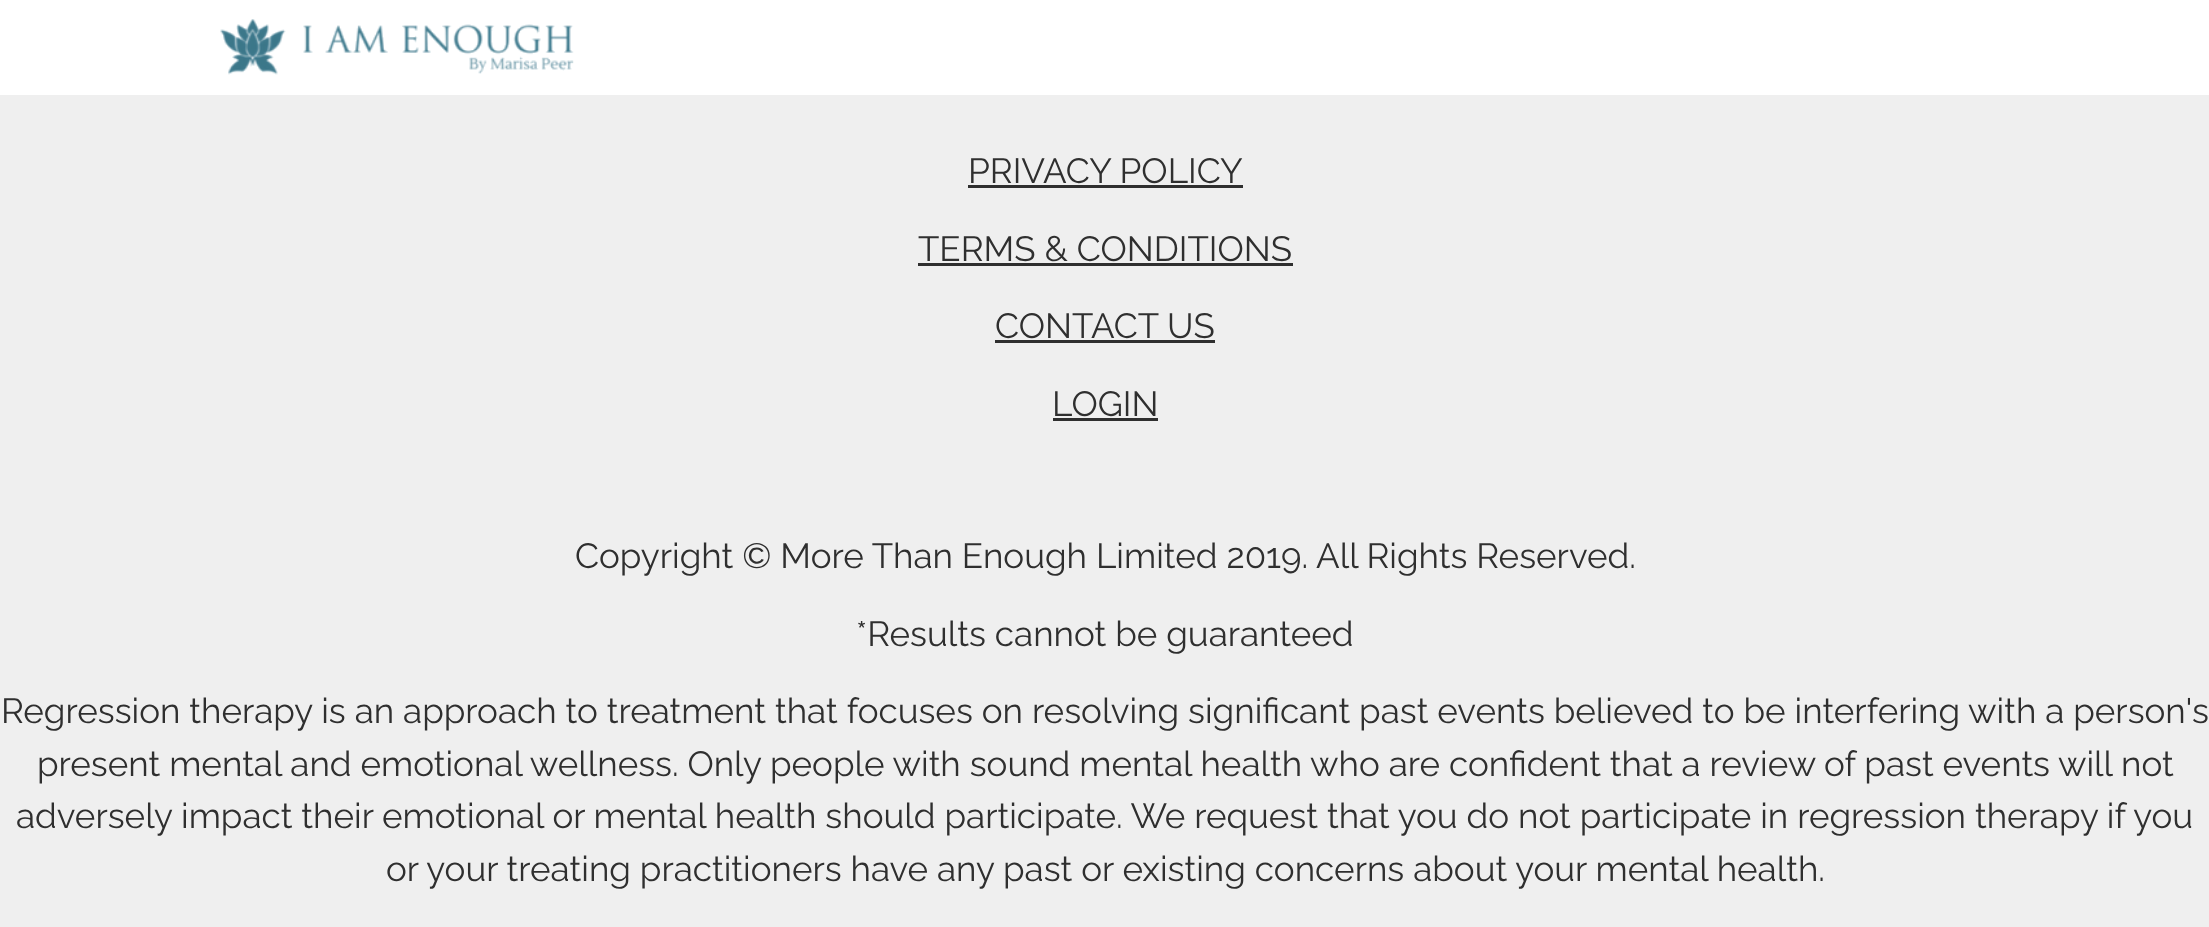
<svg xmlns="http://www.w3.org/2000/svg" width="2209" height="927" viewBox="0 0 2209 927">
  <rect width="100%" height="100%" fill="#ffffff"/>
  <image x="220" y="19" width="354" height="56" href="img1.png"/>
  <rect x="0" y="95" width="2209" height="832" fill="#efefef"/>
  <text x="968" y="183" font-family="Raleway" font-size="35" fill="#2f2f2f">PRIVACY POLICY</text>
  <rect x="968" y="185" width="275" height="3" fill="#2f2f2f"/>
  <text x="918" y="261" font-family="Raleway" font-size="35" fill="#2f2f2f">TERMS &amp; CONDITIONS</text>
  <rect x="918" y="263" width="375" height="3" fill="#2f2f2f"/>
  <text x="995" y="338" font-family="Raleway" font-size="35" fill="#2f2f2f">CONTACT US</text>
  <rect x="995" y="340" width="220" height="3" fill="#2f2f2f"/>
  <text x="1052" y="416" font-family="Raleway" font-size="35" fill="#2f2f2f">LOGIN</text>
  <rect x="1053" y="418" width="105" height="3" fill="#2f2f2f"/>
  <text x="575" y="568" font-family="Raleway" font-size="35" fill="#2f2f2f">Copyright © More Than Enough Limited 2019. All Rights Reserved.</text>
  <text x="856" y="646" font-family="Raleway" font-size="35" fill="#2f2f2f">*Results cannot be guaranteed</text>
  <text x="1" y="723" font-family="Raleway" font-size="35" fill="#2f2f2f">Regression therapy is an approach to treatment that focuses on resolving significant past events believed to be interfering with a person's</text>
  <text x="37" y="776" font-family="Raleway" font-size="35" fill="#2f2f2f">present mental and emotional wellness. Only people with sound mental health who are confident that a review of past events will not</text>
  <text x="16" y="828" font-family="Raleway" font-size="35" fill="#2f2f2f">adversely impact their emotional or mental health should participate. We request that you do not participate in regression therapy if you</text>
  <text x="386" y="881" font-family="Raleway" font-size="35" fill="#2f2f2f">or your treating practitioners have any past or existing concerns about your mental health.</text>
</svg>
